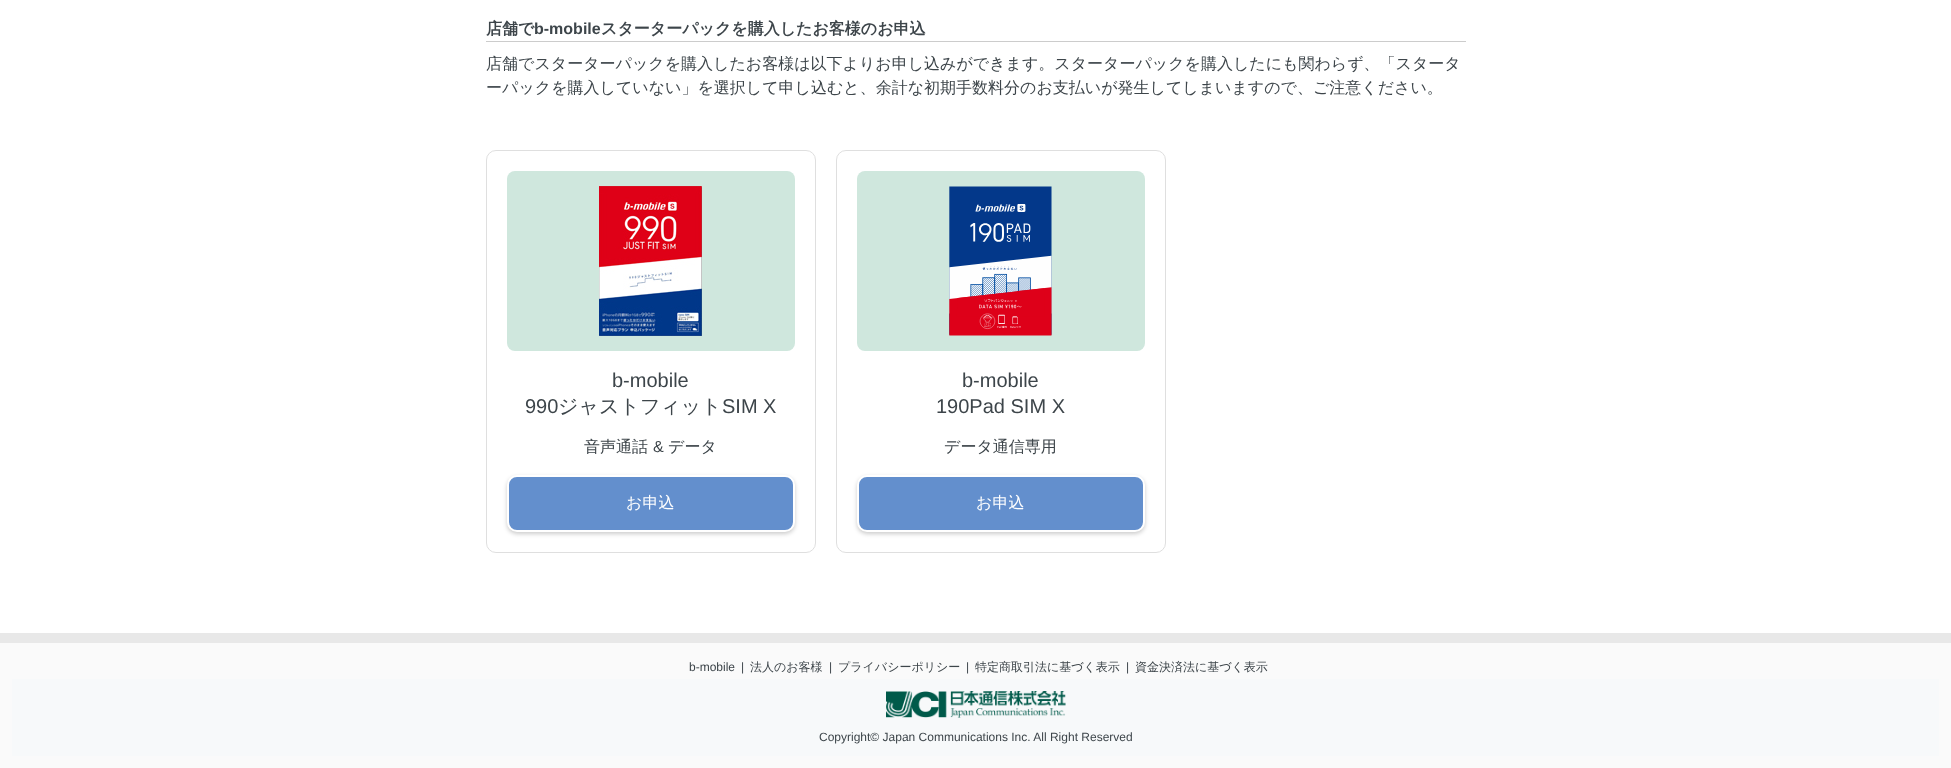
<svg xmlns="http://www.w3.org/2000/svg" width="1951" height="768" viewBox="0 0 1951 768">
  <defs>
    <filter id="blur1" x="-50%" y="-200%" width="200%" height="500%"><feGaussianBlur stdDeviation="2"/></filter>
  </defs>
  <rect width="100%" height="100%" fill="#ffffff"/>
  <rect x="486" y="41" width="980" height="1" fill="#cccccc"/>
  <text x="486" y="34" font-family="WenQuanYi Zen Hei" font-size="16" font-weight="bold" fill="#3d454a">店舗で</text>
  <text x="534" y="34" font-family="Liberation Sans" font-size="16" font-weight="bold" fill="#3d454a">b-mobile</text>
  <text x="601" y="34" font-family="WenQuanYi Zen Hei" font-size="16" font-weight="bold" fill="#3d454a">スターターパックを購入したお客様のお申込</text>
  <text x="486" y="69" font-family="WenQuanYi Zen Hei" font-size="16" font-weight="500" fill="#3d454a">店舗でスターターパックを購入したお客様は以下よりお申し込みができます。スターターパックを購入したにも関わらず、「スタータ</text>
  <text x="486" y="93" font-family="WenQuanYi Zen Hei" font-size="16" font-weight="500" fill="#3d454a">ーパックを購入していない」を選択して申し込むと、余計な初期手数料分のお支払いが発生してしまいますので、ご注意ください。</text>
  <rect x="486.5" y="150.5" width="329" height="402" rx="9.5" fill="none" stroke="#dfdfdf"/>
  <rect x="507" y="171" width="288" height="180" rx="8" fill="#cfe7dd"/>
  <image x="599" y="186" width="103" height="150" href="img1.png"/>
  <text x="612" y="387" font-family="Liberation Sans" font-size="20" fill="#3d454a">b-mobile</text>
  <text x="525" y="413" font-family="Liberation Sans" font-size="20" fill="#3d454a">990</text>
  <text x="558" y="413" font-family="WenQuanYi Zen Hei" font-size="20" font-weight="500" fill="#3d454a">ジャストフィット</text>
  <text x="722" y="413" font-family="Liberation Sans" font-size="20" fill="#3d454a">SIM X</text>
  <text x="584" y="452" font-family="WenQuanYi Zen Hei" font-size="16" font-weight="500" fill="#3d454a">音声通話</text>
  <text x="653" y="452" font-family="Liberation Sans" font-size="16" fill="#3d454a">&amp;</text>
  <text x="668" y="452" font-family="WenQuanYi Zen Hei" font-size="16" font-weight="500" fill="#3d454a">データ</text>
  <rect x="507" y="477" width="288" height="57" rx="10" fill="#000000" fill-opacity="0.2" filter="url(#blur1)"/>
  <rect x="508" y="476" width="286" height="55" rx="9" fill="#638fcd" stroke="#ffffff" stroke-width="2"/>
  <text x="626" y="508" font-family="WenQuanYi Zen Hei" font-size="16" font-weight="500" fill="#ffffff">お申込</text>
  <rect x="836.5" y="150.5" width="329" height="402" rx="9.5" fill="none" stroke="#dfdfdf"/>
  <rect x="857" y="171" width="288" height="180" rx="8" fill="#cfe7dd"/>
  <image x="949" y="186" width="103" height="150" href="img2.png"/>
  <text x="962" y="387" font-family="Liberation Sans" font-size="20" fill="#3d454a">b-mobile</text>
  <text x="936" y="413" font-family="Liberation Sans" font-size="20" fill="#3d454a">190Pad SIM X</text>
  <text x="944" y="452" font-family="WenQuanYi Zen Hei" font-size="16" font-weight="500" fill="#3d454a">データ通信専用</text>
  <rect x="857" y="477" width="288" height="57" rx="10" fill="#000000" fill-opacity="0.2" filter="url(#blur1)"/>
  <rect x="858" y="476" width="286" height="55" rx="9" fill="#638fcd" stroke="#ffffff" stroke-width="2"/>
  <text x="976" y="508" font-family="WenQuanYi Zen Hei" font-size="16" font-weight="500" fill="#ffffff">お申込</text>
  <rect x="0" y="643" width="1951" height="125" fill="#fafafa"/>
  <rect x="0" y="633" width="1951" height="10" fill="#e8e8e8"/>
  <text x="689" y="671" font-family="Liberation Sans" font-size="12" fill="#3d454a">b-mobile</text>
  <text x="741" y="671" font-family="Liberation Sans" font-size="12" fill="#3d454a">|</text>
  <text x="750" y="671" font-family="WenQuanYi Zen Hei" font-size="12" font-weight="500" fill="#3d454a">法人のお客様</text>
  <text x="829" y="671" font-family="Liberation Sans" font-size="12" fill="#3d454a">|</text>
  <text x="838" y="671" font-family="WenQuanYi Zen Hei" font-size="12" font-weight="500" fill="#3d454a">プライバシーポリシー</text>
  <text x="966" y="671" font-family="Liberation Sans" font-size="12" fill="#3d454a">|</text>
  <text x="975" y="671" font-family="WenQuanYi Zen Hei" font-size="12" font-weight="500" fill="#3d454a">特定商取引法に基づく表示</text>
  <text x="1126" y="671" font-family="Liberation Sans" font-size="12" fill="#3d454a">|</text>
  <text x="1135" y="671" font-family="WenQuanYi Zen Hei" font-size="12" font-weight="500" fill="#3d454a">資金決済法に基づく表示</text>
  <rect x="12" y="679" width="1927" height="77" fill="#f7f9fa"/>
  <image x="886" y="691" width="180" height="27" href="img3.png"/>
  <text x="819" y="741" font-family="Liberation Sans" font-size="12" fill="#3d454a">Copyright© Japan Communications Inc. All Right Reserved</text>
</svg>
